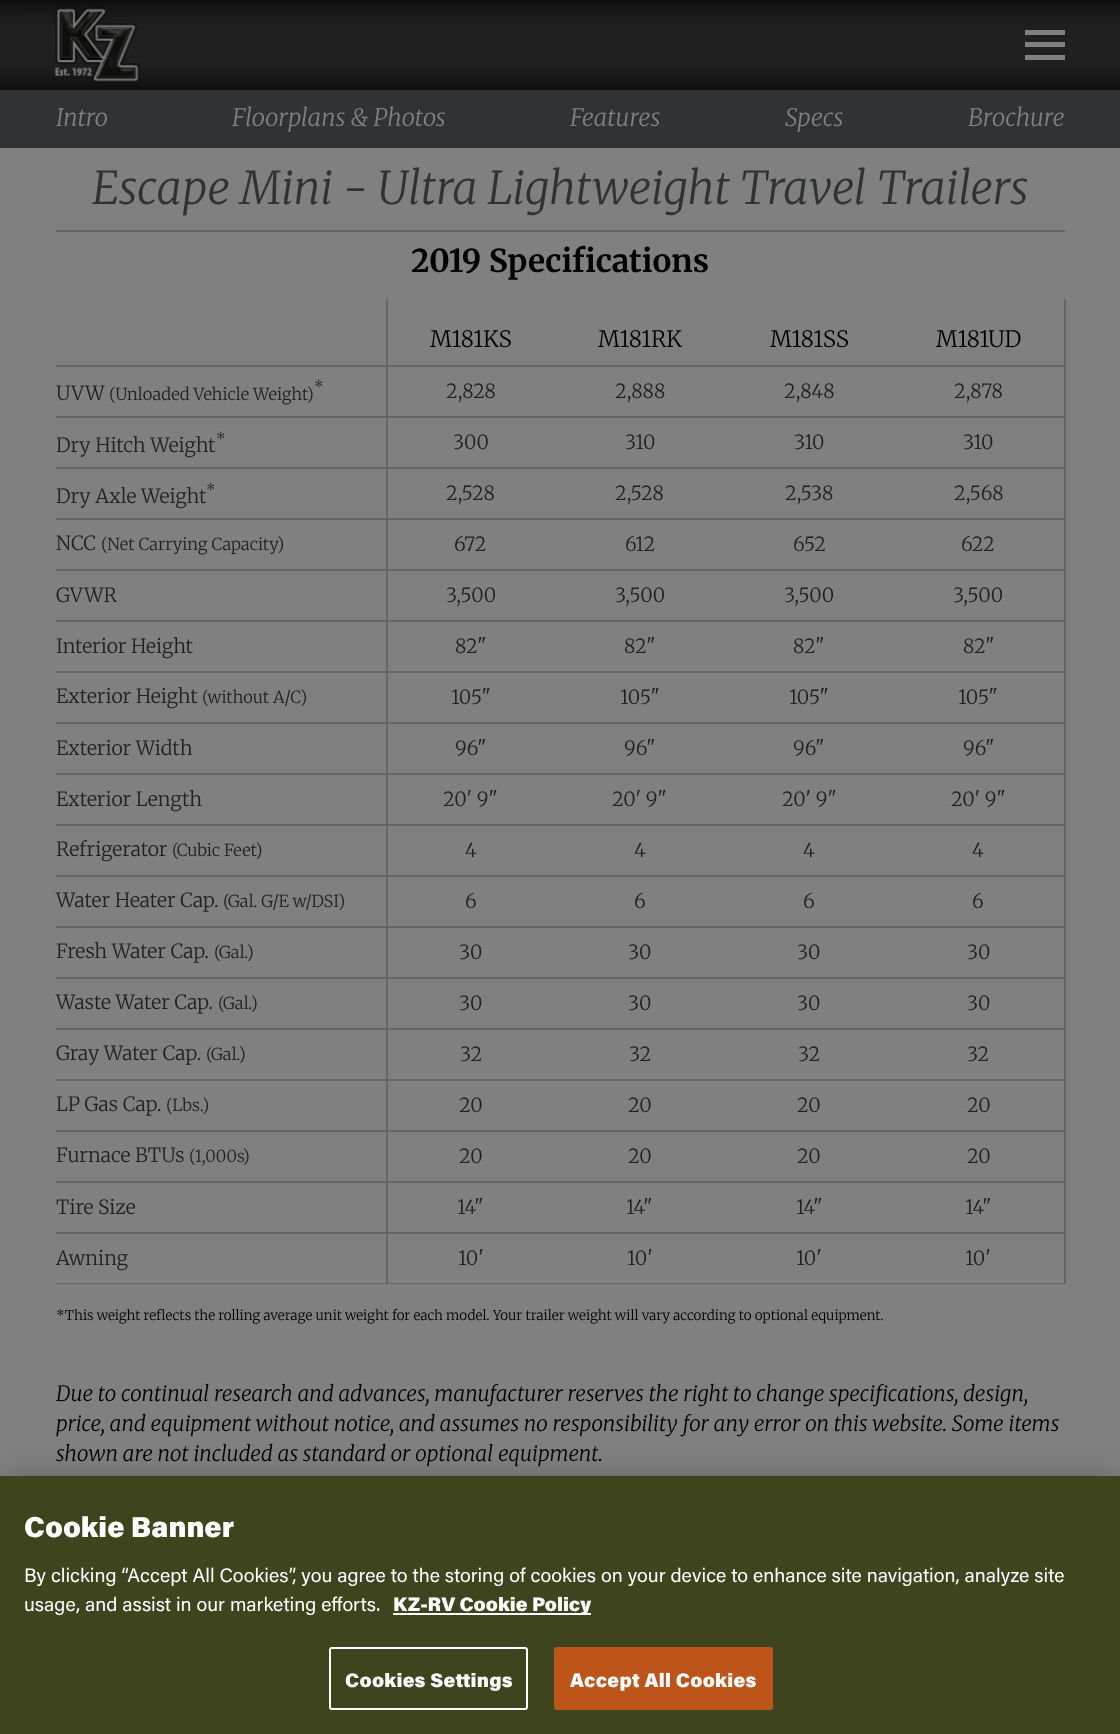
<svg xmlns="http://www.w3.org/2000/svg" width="1120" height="1734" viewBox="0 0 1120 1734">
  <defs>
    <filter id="blur1" x="-50%" y="-200%" width="200%" height="500%"><feGaussianBlur stdDeviation="13.5"/></filter>
  </defs>
  <rect width="100%" height="100%" fill="#808080"/>
  <image x="0" y="0" width="1120" height="90" href="img1.png"/>
  <rect x="1025" y="30" width="40" height="5" fill="#808080"/>
  <rect x="1025" y="42" width="40" height="5" fill="#808080"/>
  <rect x="1025" y="55" width="40" height="5" fill="#808080"/>
  <image x="55" y="7" width="85" height="76" href="img2.png"/>
  <rect x="0" y="90" width="1120" height="58" fill="#303233"/>
  <text x="56" y="126" font-family="Merriweather" font-size="24" font-weight="300" font-style="italic" fill="#808080">Intro</text>
  <text x="232" y="126" font-family="Merriweather" font-size="24" font-weight="300" font-style="italic" fill="#808080">Floorplans &amp; Photos</text>
  <text x="570" y="126" font-family="Merriweather" font-size="24" font-weight="300" font-style="italic" fill="#808080">Features</text>
  <text x="785" y="126" font-family="Merriweather" font-size="24" font-weight="300" font-style="italic" fill="#808080">Specs</text>
  <text x="968" y="126" font-family="Merriweather" font-size="24" font-weight="300" font-style="italic" fill="#808080">Brochure</text>
  <text x="92" y="204" font-family="Merriweather" font-size="45" font-weight="300" font-style="italic" fill="#303233">Escape Mini - Ultra Lightweight Travel Trailers</text>
  <rect x="56" y="230" width="1009" height="2" fill="#666666"/>
  <text x="411" y="272" font-family="Merriweather" font-size="31.5" font-weight="bold" fill="#000000">2019 Specifications</text>
  <rect x="1064" y="299" width="2" height="985" fill="#666666"/>
  <rect x="56" y="365" width="1008" height="2" fill="#666666"/>
  <rect x="56" y="416" width="1008" height="2" fill="#666666"/>
  <rect x="56" y="467" width="1008" height="2" fill="#666666"/>
  <rect x="56" y="518" width="1008" height="2" fill="#666666"/>
  <rect x="56" y="569" width="1008" height="2" fill="#666666"/>
  <rect x="56" y="620" width="1008" height="2" fill="#666666"/>
  <rect x="56" y="671" width="1008" height="2" fill="#666666"/>
  <rect x="56" y="722" width="1008" height="2" fill="#666666"/>
  <rect x="56" y="773" width="1008" height="2" fill="#666666"/>
  <rect x="56" y="824" width="1008" height="2" fill="#666666"/>
  <rect x="56" y="875" width="1008" height="2" fill="#666666"/>
  <rect x="56" y="926" width="1008" height="2" fill="#666666"/>
  <rect x="56" y="977" width="1008" height="2" fill="#666666"/>
  <rect x="56" y="1028" width="1008" height="2" fill="#666666"/>
  <rect x="56" y="1079" width="1008" height="2" fill="#666666"/>
  <rect x="56" y="1130" width="1008" height="2" fill="#666666"/>
  <rect x="56" y="1181" width="1008" height="2" fill="#666666"/>
  <rect x="56" y="1232" width="1008" height="2" fill="#666666"/>
  <rect x="56" y="1283" width="1008" height="1" fill="#666666"/>
  <rect x="386" y="299" width="2" height="985" fill="#666666"/>
  <text x="314" y="392" font-family="Merriweather" font-size="15" font-weight="300" fill="#212121">*</text>
  <text x="56" y="400" font-family="Merriweather" font-size="19.5" font-weight="300" fill="#212121">UVW</text>
  <text x="109" y="400" font-family="Merriweather" font-size="16.5" font-weight="300" fill="#212121">(Unloaded Vehicle Weight)</text>
  <text x="56" y="452" font-family="Merriweather" font-size="19.5" font-weight="300" fill="#212121">Dry Hitch Weight</text>
  <text x="216" y="444" font-family="Merriweather" font-size="15" font-weight="300" fill="#212121">*</text>
  <text x="56" y="503" font-family="Merriweather" font-size="19.5" font-weight="300" fill="#212121">Dry Axle Weight</text>
  <text x="206" y="495" font-family="Merriweather" font-size="15" font-weight="300" fill="#212121">*</text>
  <text x="56" y="550" font-family="Merriweather" font-size="19.5" font-weight="300" fill="#212121">NCC</text>
  <text x="101" y="550" font-family="Merriweather" font-size="16.5" font-weight="300" fill="#212121">(Net Carrying Capacity)</text>
  <text x="56" y="602" font-family="Merriweather" font-size="19.5" font-weight="300" fill="#212121">GVWR</text>
  <text x="56" y="653" font-family="Merriweather" font-size="19.5" font-weight="300" fill="#212121">Interior Height</text>
  <text x="56" y="703" font-family="Merriweather" font-size="19.5" font-weight="300" fill="#212121">Exterior Height</text>
  <text x="202" y="703" font-family="Merriweather" font-size="16.5" font-weight="300" fill="#212121">(without A/C)</text>
  <text x="56" y="755" font-family="Merriweather" font-size="19.5" font-weight="300" fill="#212121">Exterior Width</text>
  <text x="56" y="806" font-family="Merriweather" font-size="19.5" font-weight="300" fill="#212121">Exterior Length</text>
  <text x="56" y="856" font-family="Merriweather" font-size="19.5" font-weight="300" fill="#212121">Refrigerator</text>
  <text x="172" y="856" font-family="Merriweather" font-size="16.5" font-weight="300" fill="#212121">(Cubic Feet)</text>
  <text x="56" y="907" font-family="Merriweather" font-size="19.5" font-weight="300" fill="#212121">Water Heater Cap.</text>
  <text x="223" y="907" font-family="Merriweather" font-size="16.5" font-weight="300" fill="#212121">(Gal. G/E w/DSI)</text>
  <text x="56" y="958" font-family="Merriweather" font-size="19.5" font-weight="300" fill="#212121">Fresh Water Cap.</text>
  <text x="214" y="958" font-family="Merriweather" font-size="16.5" font-weight="300" fill="#212121">(Gal.)</text>
  <text x="56" y="1009" font-family="Merriweather" font-size="19.5" font-weight="300" fill="#212121">Waste Water Cap.</text>
  <text x="218" y="1009" font-family="Merriweather" font-size="16.5" font-weight="300" fill="#212121">(Gal.)</text>
  <text x="56" y="1060" font-family="Merriweather" font-size="19.5" font-weight="300" fill="#212121">Gray Water Cap.</text>
  <text x="206" y="1060" font-family="Merriweather" font-size="16.5" font-weight="300" fill="#212121">(Gal.)</text>
  <text x="56" y="1111" font-family="Merriweather" font-size="19.5" font-weight="300" fill="#212121">LP Gas Cap.</text>
  <text x="166" y="1111" font-family="Merriweather" font-size="16.5" font-weight="300" fill="#212121">(Lbs.)</text>
  <text x="56" y="1162" font-family="Merriweather" font-size="19.5" font-weight="300" fill="#212121">Furnace BTUs</text>
  <text x="189" y="1162" font-family="Merriweather" font-size="16.5" font-weight="300" fill="#212121">(1,000s)</text>
  <text x="56" y="1214" font-family="Merriweather" font-size="19.5" font-weight="300" fill="#212121">Tire Size</text>
  <text x="56" y="1265" font-family="Merriweather" font-size="19.5" font-weight="300" fill="#212121">Awning</text>
  <text x="430" y="347" font-family="Merriweather" font-size="22.5" font-weight="300" fill="#000000">M181KS</text>
  <text x="598" y="347" font-family="Merriweather" font-size="22.5" font-weight="300" fill="#000000">M181RK</text>
  <text x="770" y="347" font-family="Merriweather" font-size="22.5" font-weight="300" fill="#000000">M181SS</text>
  <text x="936" y="347" font-family="Merriweather" font-size="22.5" font-weight="300" fill="#000000">M181UD</text>
  <text x="446" y="398" font-family="Merriweather" font-size="19.5" font-weight="300" fill="#212121">2,828</text>
  <text x="615" y="398" font-family="Merriweather" font-size="19.5" font-weight="300" fill="#212121">2,888</text>
  <text x="784" y="398" font-family="Merriweather" font-size="19.5" font-weight="300" fill="#212121">2,848</text>
  <text x="954" y="398" font-family="Merriweather" font-size="19.5" font-weight="300" fill="#212121">2,878</text>
  <text x="453" y="449" font-family="Merriweather" font-size="19.5" font-weight="300" fill="#212121">300</text>
  <text x="625" y="449" font-family="Merriweather" font-size="19.5" font-weight="300" fill="#212121">310</text>
  <text x="794" y="449" font-family="Merriweather" font-size="19.5" font-weight="300" fill="#212121">310</text>
  <text x="963" y="449" font-family="Merriweather" font-size="19.5" font-weight="300" fill="#212121">310</text>
  <text x="446" y="500" font-family="Merriweather" font-size="19.5" font-weight="300" fill="#212121">2,528</text>
  <text x="615" y="500" font-family="Merriweather" font-size="19.5" font-weight="300" fill="#212121">2,528</text>
  <text x="785" y="500" font-family="Merriweather" font-size="19.5" font-weight="300" fill="#212121">2,538</text>
  <text x="954" y="500" font-family="Merriweather" font-size="19.5" font-weight="300" fill="#212121">2,568</text>
  <text x="454" y="551" font-family="Merriweather" font-size="19.5" font-weight="300" fill="#212121">672</text>
  <text x="625" y="551" font-family="Merriweather" font-size="19.5" font-weight="300" fill="#212121">612</text>
  <text x="793" y="551" font-family="Merriweather" font-size="19.5" font-weight="300" fill="#212121">652</text>
  <text x="961" y="551" font-family="Merriweather" font-size="19.5" font-weight="300" fill="#212121">622</text>
  <text x="446" y="602" font-family="Merriweather" font-size="19.5" font-weight="300" fill="#212121">3,500</text>
  <text x="615" y="602" font-family="Merriweather" font-size="19.5" font-weight="300" fill="#212121">3,500</text>
  <text x="784" y="602" font-family="Merriweather" font-size="19.5" font-weight="300" fill="#212121">3,500</text>
  <text x="953" y="602" font-family="Merriweather" font-size="19.5" font-weight="300" fill="#212121">3,500</text>
  <text x="455" y="653" font-family="Merriweather" font-size="19.5" font-weight="300" fill="#212121">82"</text>
  <text x="624" y="653" font-family="Merriweather" font-size="19.5" font-weight="300" fill="#212121">82"</text>
  <text x="793" y="653" font-family="Merriweather" font-size="19.5" font-weight="300" fill="#212121">82"</text>
  <text x="963" y="653" font-family="Merriweather" font-size="19.5" font-weight="300" fill="#212121">82"</text>
  <text x="451" y="704" font-family="Merriweather" font-size="19.5" font-weight="300" fill="#212121">105"</text>
  <text x="620" y="704" font-family="Merriweather" font-size="19.5" font-weight="300" fill="#212121">105"</text>
  <text x="789" y="704" font-family="Merriweather" font-size="19.5" font-weight="300" fill="#212121">105"</text>
  <text x="958" y="704" font-family="Merriweather" font-size="19.5" font-weight="300" fill="#212121">105"</text>
  <text x="455" y="755" font-family="Merriweather" font-size="19.5" font-weight="300" fill="#212121">96"</text>
  <text x="624" y="755" font-family="Merriweather" font-size="19.5" font-weight="300" fill="#212121">96"</text>
  <text x="793" y="755" font-family="Merriweather" font-size="19.5" font-weight="300" fill="#212121">96"</text>
  <text x="963" y="755" font-family="Merriweather" font-size="19.5" font-weight="300" fill="#212121">96"</text>
  <text x="443" y="806" font-family="Merriweather" font-size="19.5" font-weight="300" fill="#212121">20' 9"</text>
  <text x="612" y="806" font-family="Merriweather" font-size="19.5" font-weight="300" fill="#212121">20' 9"</text>
  <text x="782" y="806" font-family="Merriweather" font-size="19.5" font-weight="300" fill="#212121">20' 9"</text>
  <text x="951" y="806" font-family="Merriweather" font-size="19.5" font-weight="300" fill="#212121">20' 9"</text>
  <text x="465" y="857" font-family="Merriweather" font-size="19.5" font-weight="300" fill="#212121">4</text>
  <text x="634" y="857" font-family="Merriweather" font-size="19.5" font-weight="300" fill="#212121">4</text>
  <text x="803" y="857" font-family="Merriweather" font-size="19.5" font-weight="300" fill="#212121">4</text>
  <text x="972" y="857" font-family="Merriweather" font-size="19.5" font-weight="300" fill="#212121">4</text>
  <text x="465" y="908" font-family="Merriweather" font-size="19.5" font-weight="300" fill="#212121">6</text>
  <text x="634" y="908" font-family="Merriweather" font-size="19.5" font-weight="300" fill="#212121">6</text>
  <text x="803" y="908" font-family="Merriweather" font-size="19.5" font-weight="300" fill="#212121">6</text>
  <text x="972" y="908" font-family="Merriweather" font-size="19.5" font-weight="300" fill="#212121">6</text>
  <text x="459" y="959" font-family="Merriweather" font-size="19.5" font-weight="300" fill="#212121">30</text>
  <text x="628" y="959" font-family="Merriweather" font-size="19.5" font-weight="300" fill="#212121">30</text>
  <text x="797" y="959" font-family="Merriweather" font-size="19.5" font-weight="300" fill="#212121">30</text>
  <text x="967" y="959" font-family="Merriweather" font-size="19.5" font-weight="300" fill="#212121">30</text>
  <text x="459" y="1010" font-family="Merriweather" font-size="19.5" font-weight="300" fill="#212121">30</text>
  <text x="628" y="1010" font-family="Merriweather" font-size="19.5" font-weight="300" fill="#212121">30</text>
  <text x="797" y="1010" font-family="Merriweather" font-size="19.5" font-weight="300" fill="#212121">30</text>
  <text x="967" y="1010" font-family="Merriweather" font-size="19.5" font-weight="300" fill="#212121">30</text>
  <text x="460" y="1061" font-family="Merriweather" font-size="19.5" font-weight="300" fill="#212121">32</text>
  <text x="629" y="1061" font-family="Merriweather" font-size="19.5" font-weight="300" fill="#212121">32</text>
  <text x="798" y="1061" font-family="Merriweather" font-size="19.5" font-weight="300" fill="#212121">32</text>
  <text x="967" y="1061" font-family="Merriweather" font-size="19.5" font-weight="300" fill="#212121">32</text>
  <text x="459" y="1112" font-family="Merriweather" font-size="19.5" font-weight="300" fill="#212121">20</text>
  <text x="628" y="1112" font-family="Merriweather" font-size="19.5" font-weight="300" fill="#212121">20</text>
  <text x="797" y="1112" font-family="Merriweather" font-size="19.5" font-weight="300" fill="#212121">20</text>
  <text x="967" y="1112" font-family="Merriweather" font-size="19.5" font-weight="300" fill="#212121">20</text>
  <text x="459" y="1163" font-family="Merriweather" font-size="19.5" font-weight="300" fill="#212121">20</text>
  <text x="628" y="1163" font-family="Merriweather" font-size="19.5" font-weight="300" fill="#212121">20</text>
  <text x="797" y="1163" font-family="Merriweather" font-size="19.5" font-weight="300" fill="#212121">20</text>
  <text x="967" y="1163" font-family="Merriweather" font-size="19.5" font-weight="300" fill="#212121">20</text>
  <text x="457" y="1214" font-family="Merriweather" font-size="19.5" font-weight="300" fill="#212121">14"</text>
  <text x="626" y="1214" font-family="Merriweather" font-size="19.5" font-weight="300" fill="#212121">14"</text>
  <text x="796" y="1214" font-family="Merriweather" font-size="19.5" font-weight="300" fill="#212121">14"</text>
  <text x="965" y="1214" font-family="Merriweather" font-size="19.5" font-weight="300" fill="#212121">14"</text>
  <text x="458" y="1265" font-family="Merriweather" font-size="19.5" font-weight="300" fill="#212121">10'</text>
  <text x="627" y="1265" font-family="Merriweather" font-size="19.5" font-weight="300" fill="#212121">10'</text>
  <text x="796" y="1265" font-family="Merriweather" font-size="19.5" font-weight="300" fill="#212121">10'</text>
  <text x="965" y="1265" font-family="Merriweather" font-size="19.5" font-weight="300" fill="#212121">10'</text>
  <text x="56" y="1320" font-family="Merriweather" font-size="13.5" font-weight="300" fill="#000000">*This weight reflects the rolling average unit weight for each model. Your trailer weight will vary according to optional equipment.</text>
  <text x="56" y="1401" font-family="Merriweather" font-size="21" font-weight="300" font-style="italic" fill="#000000">Due to continual research and advances, manufacturer reserves the right to change specifications, design,</text>
  <text x="56" y="1431" font-family="Merriweather" font-size="21" font-weight="300" font-style="italic" fill="#000000">price, and equipment without notice, and assumes no responsibility for any error on this website. Some items</text>
  <text x="56" y="1461" font-family="Merriweather" font-size="21" font-weight="300" font-style="italic" fill="#000000">shown are not included as standard or optional equipment.</text>
  <rect x="0" y="1476" width="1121" height="258" fill="#000000" fill-opacity="0.2" filter="url(#blur1)"/>
  <rect x="0" y="1476" width="1120" height="258" fill="#3d441e"/>
  <text x="24" y="1537" font-family="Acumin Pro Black" font-size="28.75" font-weight="900" fill="#ffffff">Cookie Banner</text>
  <text x="24" y="1582" font-family="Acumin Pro" font-size="19.5" fill="#ffffff">By clicking “Accept All Cookies”, you agree to the storing of cookies on your device to enhance site navigation, analyze site</text>
  <text x="24" y="1611" font-family="Acumin Pro" font-size="19.5" fill="#ffffff">usage, and assist in our marketing efforts.</text>
  <rect x="393" y="1613" width="198" height="2" fill="#ffffff"/>
  <text x="393" y="1611" font-family="Acumin Pro Black" font-size="19.5" font-weight="900" fill="#ffffff">KZ-RV Cookie Policy</text>
  <rect x="330" y="1648" width="197" height="61" rx="2" fill="none" stroke="#ffffff" stroke-width="2"/>
  <text x="345" y="1687" font-family="Acumin Pro Black" font-size="19.5" font-weight="900" letter-spacing="0.25" fill="#ffffff">Cookies Settings</text>
  <rect x="555" y="1648" width="217" height="61" rx="2" fill="#bd551a" stroke="#bd551a" stroke-width="2"/>
  <text x="570" y="1687" font-family="Acumin Pro Black" font-size="19.5" font-weight="900" letter-spacing="0.25" fill="#ffffff">Accept All Cookies</text>
</svg>
